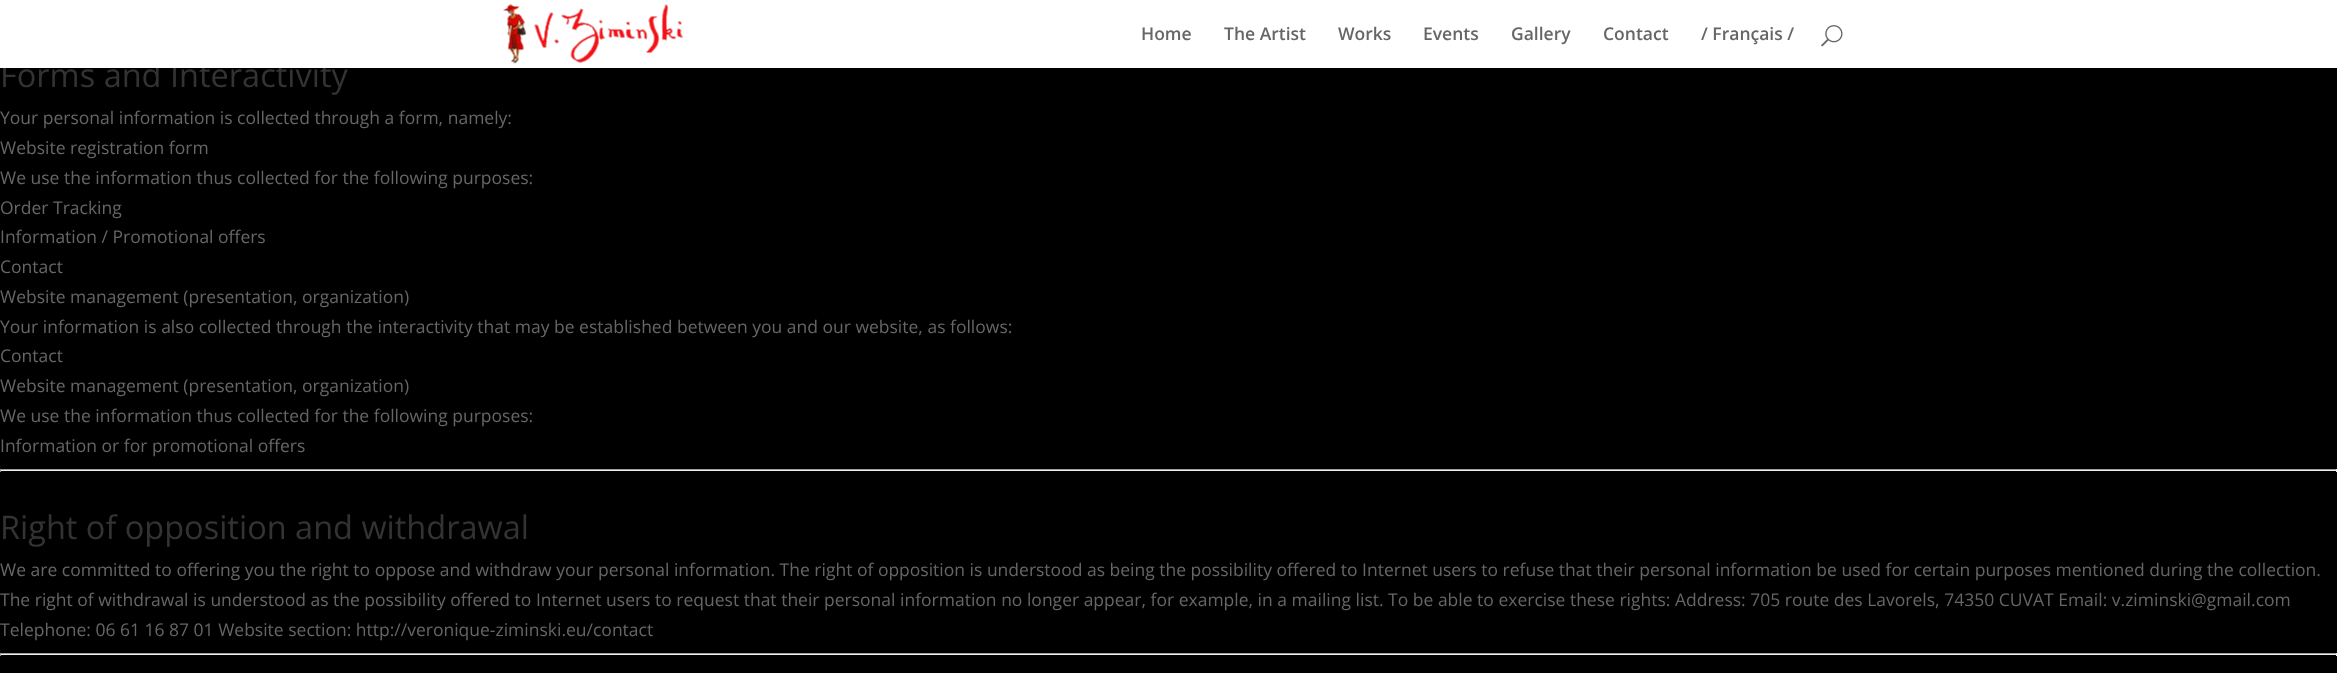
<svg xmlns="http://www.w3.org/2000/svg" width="2337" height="673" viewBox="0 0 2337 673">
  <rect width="100%" height="100%" fill="#000000"/>
  <text x="0" y="87" font-family="Open Sans" font-size="32.5" fill="#333333">Forms and Interactivity</text>
  <rect x="0" y="0" width="2337" height="68" fill="#ffffff"/>
  <image x="503" y="4" width="180" height="60" href="img1.png"/>
  <text x="1141" y="40" font-family="Open Sans" font-size="17.5" font-weight="600" fill="#666666">Home</text>
  <text x="1224" y="40" font-family="Open Sans" font-size="17.5" font-weight="600" fill="#666666">The Artist</text>
  <text x="1338" y="40" font-family="Open Sans" font-size="17.5" font-weight="600" fill="#666666">Works</text>
  <text x="1423" y="40" font-family="Open Sans" font-size="17.5" font-weight="600" fill="#666666">Events</text>
  <text x="1511" y="40" font-family="Open Sans" font-size="17.5" font-weight="600" fill="#666666">Gallery</text>
  <text x="1603" y="40" font-family="Open Sans" font-size="17.5" font-weight="600" fill="#666666">Contact</text>
  <text x="1701" y="40" font-family="Open Sans" font-size="17.5" font-weight="600" fill="#666666">/ Français /</text>
  <image x="1821" y="25" width="22" height="22" href="img2.png"/>
  <text x="0" y="124" font-family="Open Sans" font-size="17.5" fill="#666666">Your personal information is collected through a form, namely:</text>
  <text x="0" y="154" font-family="Open Sans" font-size="17.5" fill="#666666">Website registration form</text>
  <text x="0" y="184" font-family="Open Sans" font-size="17.5" fill="#666666">We use the information thus collected for the following purposes:</text>
  <text x="0" y="214" font-family="Open Sans" font-size="17.5" fill="#666666">Order Tracking</text>
  <text x="0" y="243" font-family="Open Sans" font-size="17.5" fill="#666666">Information / Promotional offers</text>
  <text x="0" y="273" font-family="Open Sans" font-size="17.5" fill="#666666">Contact</text>
  <text x="0" y="303" font-family="Open Sans" font-size="17.5" fill="#666666">Website management (presentation, organization)</text>
  <text x="0" y="333" font-family="Open Sans" font-size="17.5" fill="#666666">Your information is also collected through the interactivity that may be established between you and our website, as follows:</text>
  <text x="0" y="362" font-family="Open Sans" font-size="17.5" fill="#666666">Contact</text>
  <text x="0" y="392" font-family="Open Sans" font-size="17.5" fill="#666666">Website management (presentation, organization)</text>
  <text x="0" y="422" font-family="Open Sans" font-size="17.5" fill="#666666">We use the information thus collected for the following purposes:</text>
  <text x="0" y="452" font-family="Open Sans" font-size="17.5" fill="#666666">Information or for promotional offers</text>
  <rect x="0" y="469" width="2337" height="1" fill="#9f9f9f"/>
  <rect x="2336" y="469" width="1" height="3" fill="#eeeeee"/>
  <rect x="0" y="470" width="2337" height="1" fill="#eeeeee"/>
  <rect x="0" y="469" width="1" height="3" fill="#9f9f9f"/>
  <text x="0" y="539" font-family="Open Sans" font-size="32.5" fill="#333333">Right of opposition and withdrawal</text>
  <text x="0" y="576" font-family="Open Sans" font-size="17.5" fill="#666666">We are committed to offering you the right to oppose and withdraw your personal information. The right of opposition is understood as being the possibility offered to Internet users to refuse that their personal information be used for certain purposes mentioned during the collection.</text>
  <text x="0" y="606" font-family="Open Sans" font-size="17.5" fill="#666666">The right of withdrawal is understood as the possibility offered to Internet users to request that their personal information no longer appear, for example, in a mailing list. To be able to exercise these rights: Address: 705 route des Lavorels, 74350 CUVAT Email: v.ziminski@gmail.com</text>
  <text x="0" y="636" font-family="Open Sans" font-size="17.5" fill="#666666">Telephone: 06 61 16 87 01 Website section: http://veronique-ziminski.eu/contact</text>
  <rect x="0" y="653" width="2337" height="1" fill="#9f9f9f"/>
  <rect x="2336" y="653" width="1" height="3" fill="#eeeeee"/>
  <rect x="0" y="654" width="2337" height="1" fill="#eeeeee"/>
  <rect x="0" y="653" width="1" height="3" fill="#9f9f9f"/>
</svg>
